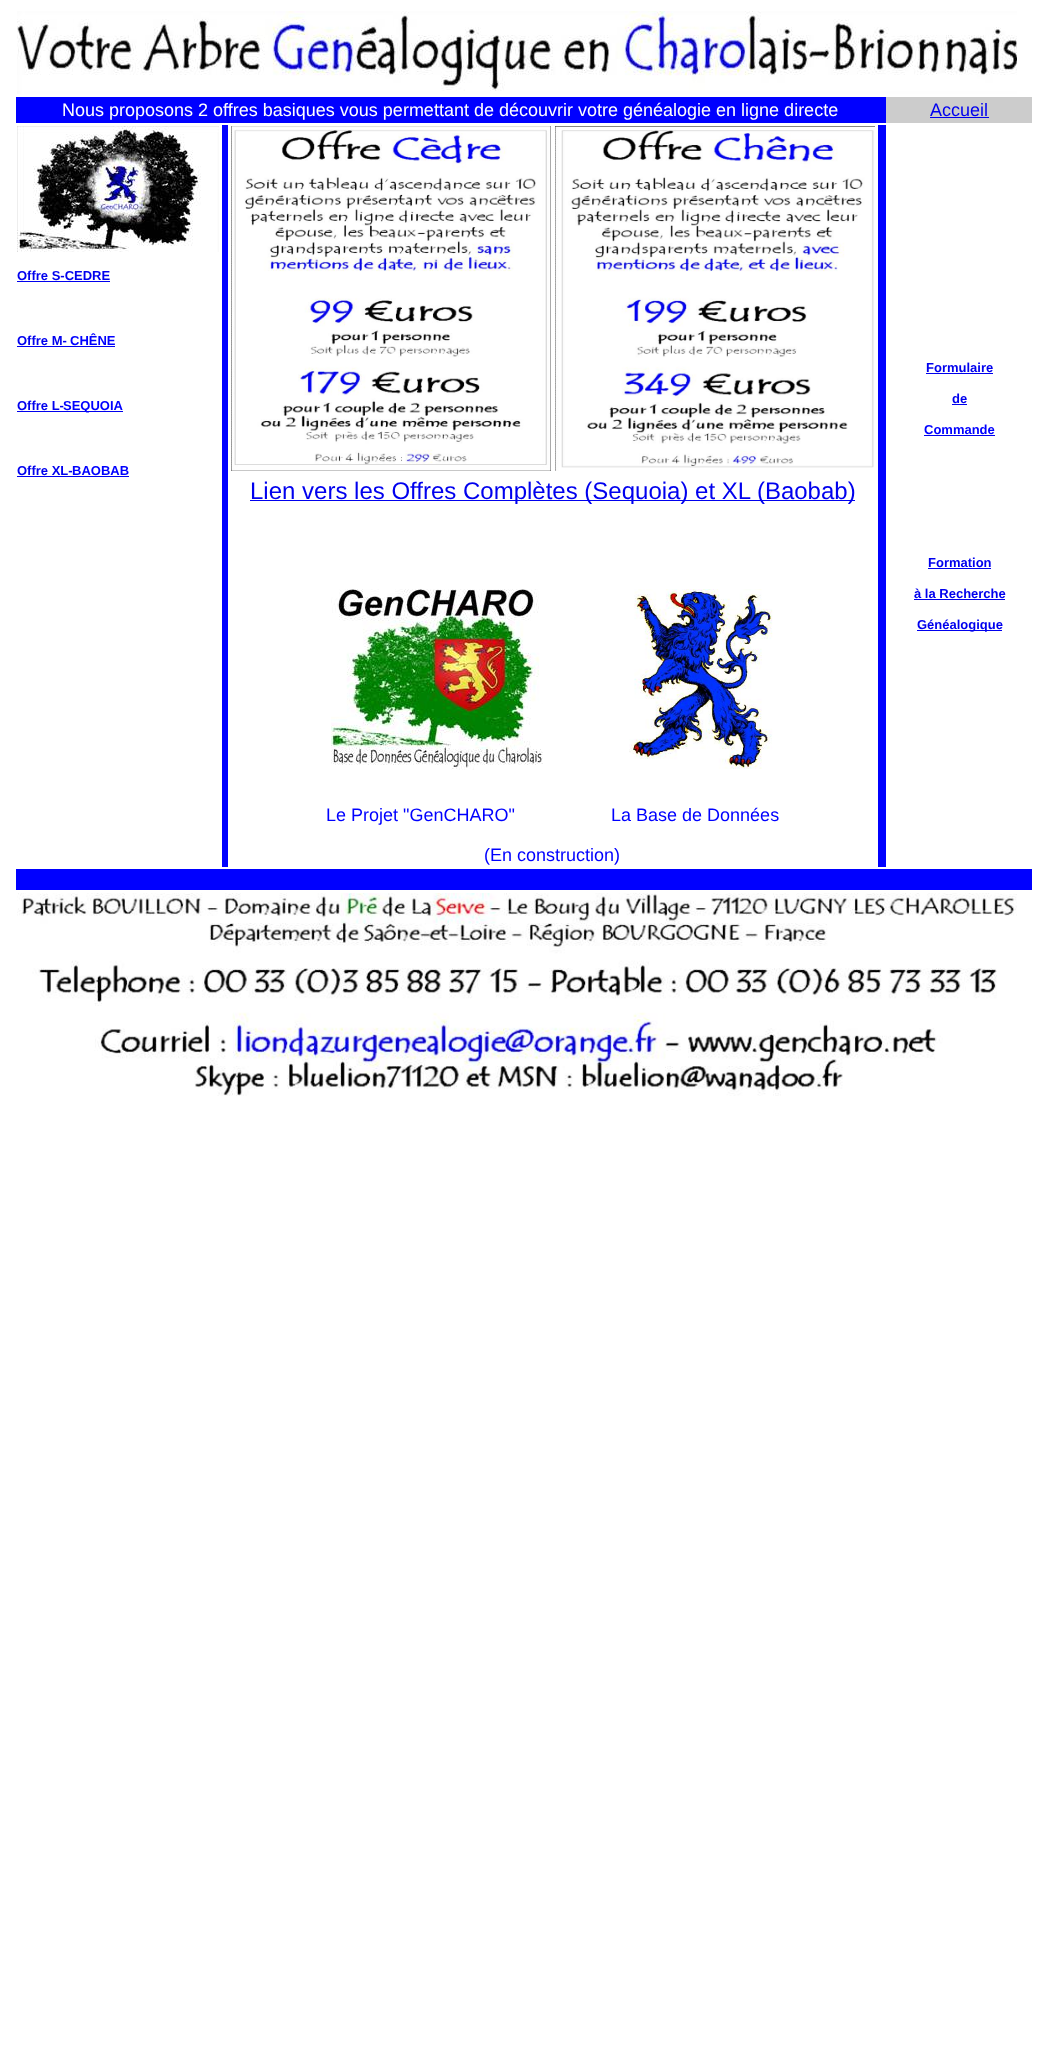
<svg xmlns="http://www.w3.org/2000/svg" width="1047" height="2054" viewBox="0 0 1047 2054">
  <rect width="100%" height="100%" fill="#ffffff"/>
  <image x="17" y="11" width="1000" height="83" href="img1.png"/>
  <rect x="886" y="97" width="146" height="26" fill="#cccccc"/>
  <rect x="16" y="97" width="870" height="26" fill="#0000ff"/>
  <text x="62" y="116" font-family="Liberation Sans" font-size="18" fill="#ffffff">Nous proposons 2 offres basiques vous permettant de découvrir votre généalogie en ligne directe</text>
  <text x="930" y="116" font-family="Liberation Sans" font-size="18" fill="#0000ee">Accueil</text>
  <rect x="930" y="117" width="59" height="1" fill="#0000ee"/>
  <image x="17" y="126" width="202" height="126" href="img2.png"/>
  <text x="17" y="280" font-family="Liberation Sans" font-size="13" font-weight="bold" fill="#0000ee">Offre S-CEDRE</text>
  <rect x="17" y="281" width="93" height="1" fill="#0000ee"/>
  <text x="17" y="345" font-family="Liberation Sans" font-size="13" font-weight="bold" fill="#0000ee">Offre M-</text>
  <rect x="17" y="346" width="98" height="1" fill="#0000ee"/>
  <text x="70" y="345" font-family="Liberation Sans" font-size="13" font-weight="bold" fill="#0000ff">CHÊNE</text>
  <text x="17" y="410" font-family="Liberation Sans" font-size="13" font-weight="bold" fill="#0000ee">Offre L-</text>
  <rect x="17" y="411" width="106" height="1" fill="#0000ee"/>
  <text x="63" y="410" font-family="Liberation Sans" font-size="13" font-weight="bold" fill="#0000ff">SEQUOIA</text>
  <text x="17" y="475" font-family="Liberation Sans" font-size="13" font-weight="bold" fill="#0000ee">Offre XL-</text>
  <rect x="17" y="476" width="112" height="1" fill="#0000ee"/>
  <text x="72" y="475" font-family="Liberation Sans" font-size="13" font-weight="bold" fill="#0000ff">BAOBAB</text>
  <rect x="222" y="125" width="6" height="742" fill="#0000ff"/>
  <image x="231" y="126" width="320" height="345" href="img3.png"/>
  <image x="555" y="126" width="320" height="345" href="img4.png"/>
  <rect x="878" y="125" width="8" height="742" fill="#0000ff"/>
  <text x="926" y="372" font-family="Liberation Sans" font-size="13" font-weight="bold" fill="#0000ee">Formulaire</text>
  <rect x="926" y="373" width="67" height="1" fill="#0000ee"/>
  <text x="952" y="403" font-family="Liberation Sans" font-size="13" font-weight="bold" fill="#0000ee">de</text>
  <rect x="952" y="404" width="15" height="1" fill="#0000ee"/>
  <text x="924" y="434" font-family="Liberation Sans" font-size="13" font-weight="bold" fill="#0000ff">Commande</text>
  <rect x="924" y="435" width="71" height="1" fill="#0000ee"/>
  <text x="928" y="567" font-family="Liberation Sans" font-size="13" font-weight="bold" fill="#0000ee">Formation</text>
  <rect x="928" y="568" width="63" height="1" fill="#0000ee"/>
  <text x="914" y="598" font-family="Liberation Sans" font-size="13" font-weight="bold" fill="#0000ee">à la Recherche</text>
  <rect x="914" y="599" width="91" height="1" fill="#0000ee"/>
  <rect x="917" y="630" width="85" height="1" fill="#0000ee"/>
  <text x="917" y="629" font-family="Liberation Sans" font-size="13" font-weight="bold" fill="#0000ee">Généalogique</text>
  <rect x="250" y="500" width="605" height="1" fill="#0000ee"/>
  <text x="250" y="499" font-family="Liberation Sans" font-size="24" fill="#0000ee">Lien vers les Offres Complètes (Sequoia) et XL (Baobab)</text>
  <image x="331" y="589" width="212" height="181" href="img5.png"/>
  <image x="629" y="589" width="144" height="180" href="img6.png"/>
  <text x="326" y="821" font-family="Liberation Sans" font-size="18" fill="#0000ff">Le Projet "GenCHARO"</text>
  <text x="611" y="821" font-family="Liberation Sans" font-size="18" fill="#0000ff">La Base de Données</text>
  <text x="484" y="861" font-family="Liberation Sans" font-size="18" fill="#0000ff">(En construction)</text>
  <rect x="16" y="869" width="1016" height="21" fill="#0000ff"/>
  <image x="17" y="893" width="1000" height="203" href="img7.png"/>
</svg>
